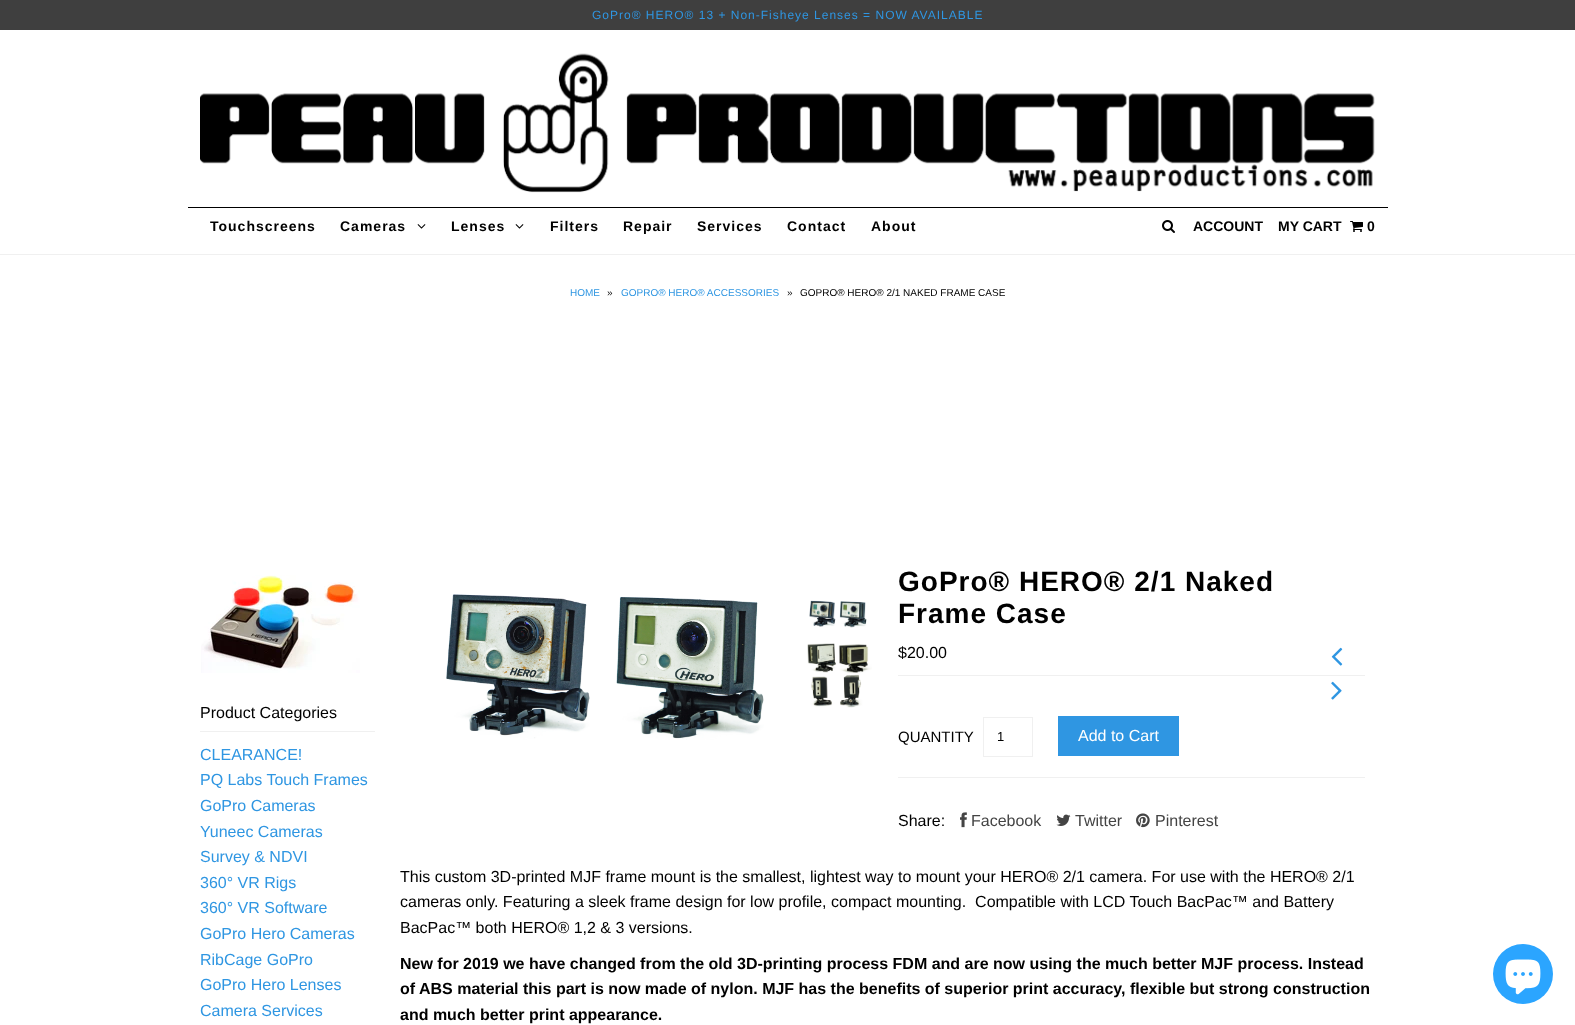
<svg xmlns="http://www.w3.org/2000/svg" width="1575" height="1025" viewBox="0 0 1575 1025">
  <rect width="100%" height="100%" fill="#ffffff"/>
  <rect x="0" y="254" width="1575" height="1" fill="#f0f0f0"/>
  <rect x="0" y="0" width="1575" height="30" fill="#3f3f3f"/>
  <text x="592" y="19" font-family="Liberation Sans" font-size="12" letter-spacing="1" fill="#2f96e2">GoPro® HERO® 13 + Non-Fisheye Lenses = NOW AVAILABLE</text>
  <image x="200" y="53" width="1175" height="140" href="img1.png"/>
  <rect x="188" y="207" width="1200" height="1" fill="#000000"/>
  <text x="210" y="231" font-family="Liberation Sans" font-size="14" font-weight="bold" letter-spacing="1" fill="#000000">Touchscreens</text>
  <text x="340" y="231" font-family="Liberation Sans" font-size="14" font-weight="bold" letter-spacing="1" fill="#000000">Cameras</text>
  <image x="417" y="224" width="9" height="5" href="img2.png"/>
  <text x="451" y="231" font-family="Liberation Sans" font-size="14" font-weight="bold" letter-spacing="1" fill="#000000">Lenses</text>
  <image x="515" y="224" width="9" height="5" href="img2.png"/>
  <text x="550" y="231" font-family="Liberation Sans" font-size="14" font-weight="bold" letter-spacing="1" fill="#000000">Filters</text>
  <text x="623" y="231" font-family="Liberation Sans" font-size="14" font-weight="bold" letter-spacing="1" fill="#000000">Repair</text>
  <text x="697" y="231" font-family="Liberation Sans" font-size="14" font-weight="bold" letter-spacing="1" fill="#000000">Services</text>
  <text x="787" y="231" font-family="Liberation Sans" font-size="14" font-weight="bold" letter-spacing="1" fill="#000000">Contact</text>
  <text x="871" y="231" font-family="Liberation Sans" font-size="14" font-weight="bold" letter-spacing="1" fill="#000000">About</text>
  <image x="1162" y="220" width="13" height="13" href="img3.png"/>
  <text x="1193" y="231" font-family="Liberation Sans" font-size="14" font-weight="bold" fill="#000000">ACCOUNT</text>
  <text x="1278" y="231" font-family="Liberation Sans" font-size="14" font-weight="bold" fill="#000000">MY CART</text>
  <image x="1350" y="221" width="13" height="11" href="img4.png"/>
  <text x="1367" y="231" font-family="Liberation Sans" font-size="14" font-weight="bold" fill="#000000">0</text>
  <text x="570" y="296" font-family="Liberation Sans" font-size="10" fill="#2f96e2">HOME</text>
  <text x="607" y="296" font-family="Liberation Sans" font-size="10" fill="#000000">»</text>
  <text x="621" y="296" font-family="Liberation Sans" font-size="10" fill="#2f96e2">GOPRO® HERO® ACCESSORIES</text>
  <text x="787" y="296" font-family="Liberation Sans" font-size="10" fill="#000000">»</text>
  <text x="800" y="296" font-family="Liberation Sans" font-size="10" fill="#000000">GOPRO® HERO® 2/1 NAKED FRAME CASE</text>
  <image x="201" y="575" width="159" height="98" href="img5.png"/>
  <rect x="200" y="731" width="175" height="1" fill="#f0f0f0"/>
  <text x="200" y="718" font-family="Liberation Sans" font-size="16" fill="#000000">Product Categories</text>
  <text x="200" y="760" font-family="Liberation Sans" font-size="16" fill="#2f96e2">CLEARANCE!</text>
  <text x="200" y="785" font-family="Liberation Sans" font-size="16" fill="#2f96e2">PQ Labs Touch Frames</text>
  <text x="200" y="811" font-family="Liberation Sans" font-size="16" fill="#2f96e2">GoPro Cameras</text>
  <text x="200" y="837" font-family="Liberation Sans" font-size="16" fill="#2f96e2">Yuneec Cameras</text>
  <text x="200" y="862" font-family="Liberation Sans" font-size="16" fill="#2f96e2">Survey &amp; NDVI</text>
  <text x="200" y="888" font-family="Liberation Sans" font-size="16" fill="#2f96e2">360° VR Rigs</text>
  <text x="200" y="913" font-family="Liberation Sans" font-size="16" fill="#2f96e2">360° VR Software</text>
  <text x="200" y="939" font-family="Liberation Sans" font-size="16" fill="#2f96e2">GoPro Hero Cameras</text>
  <text x="200" y="965" font-family="Liberation Sans" font-size="16" fill="#2f96e2">RibCage GoPro</text>
  <text x="200" y="990" font-family="Liberation Sans" font-size="16" fill="#2f96e2">GoPro Hero Lenses</text>
  <text x="200" y="1016" font-family="Liberation Sans" font-size="16" fill="#2f96e2">Camera Services</text>
  <image x="446" y="594" width="318" height="146" href="img6.png"/>
  <image x="809" y="600" width="58" height="28" href="img7.png"/>
  <image x="807" y="643" width="65" height="65" href="img8.png"/>
  <text x="898" y="591" font-family="Liberation Sans" font-size="28" font-weight="bold" letter-spacing="1" fill="#000000">GoPro® HERO® 2/1 Naked</text>
  <text x="898" y="623" font-family="Liberation Sans" font-size="28" font-weight="bold" letter-spacing="1" fill="#000000">Frame Case</text>
  <rect x="898" y="675" width="467" height="1" fill="#f0f0f0"/>
  <text x="898" y="658" font-family="Liberation Sans" font-size="16" fill="#000000">$20.00</text>
  <rect x="898" y="777" width="467" height="1" fill="#f0f0f0"/>
  <text x="898" y="742" font-family="Liberation Sans" font-size="15" fill="#000000">QUANTITY</text>
  <rect x="983.5" y="717.5" width="49" height="39" fill="none" stroke="#f0f0f0"/>
  <text x="997" y="741" font-family="Liberation Sans" font-size="13" fill="#000000">1</text>
  <rect x="1058" y="716" width="121" height="40" fill="#2f96e2"/>
  <text x="1078" y="741" font-family="Liberation Sans" font-size="16" fill="#ffffff">Add to Cart</text>
  <text x="898" y="826" font-family="Liberation Sans" font-size="16" fill="#000000">Share:</text>
  <image x="960" y="812" width="7" height="16" href="img9.png"/>
  <text x="971" y="826" font-family="Liberation Sans" font-size="16" fill="#444444">Facebook</text>
  <image x="1056" y="814" width="15" height="12" href="img10.png"/>
  <text x="1075" y="826" font-family="Liberation Sans" font-size="16" fill="#444444">Twitter</text>
  <image x="1136" y="813" width="14" height="15" href="img11.png"/>
  <text x="1155" y="826" font-family="Liberation Sans" font-size="16" fill="#444444">Pinterest</text>
  <image x="1331" y="647" width="12" height="19" href="img12.png"/>
  <image x="1331" y="681" width="11" height="19" href="img13.png"/>
  <text x="400" y="882" font-family="Liberation Sans" font-size="16" fill="#000000">This custom 3D-printed MJF frame mount is the smallest, lightest way to mount your HERO® 2/1 camera. For use with the HERO® 2/1</text>
  <text x="400" y="907" font-family="Liberation Sans" font-size="16" fill="#000000" xml:space="preserve">cameras only. Featuring a sleek frame design for low profile, compact mounting.  Compatible with LCD Touch BacPac™ and Battery</text>
  <text x="400" y="933" font-family="Liberation Sans" font-size="16" fill="#000000">BacPac™ both HERO® 1,2 &amp; 3 versions.</text>
  <text x="400" y="969" font-family="Liberation Sans" font-size="16" font-weight="bold" fill="#000000">New for 2019 we have changed from the old 3D-printing process FDM and are now using the much better MJF process. Instead</text>
  <text x="400" y="994" font-family="Liberation Sans" font-size="16" font-weight="bold" fill="#000000">of ABS material this part is now made of nylon. MJF has the benefits of superior print accuracy, flexible but strong construction</text>
  <text x="400" y="1020" font-family="Liberation Sans" font-size="16" font-weight="bold" fill="#000000">and much better print appearance.</text>
  <circle cx="1523" cy="974" r="30" fill="#2ba5ff"/>
  <image x="1505" y="959" width="36" height="36" href="img14.png"/>
</svg>
